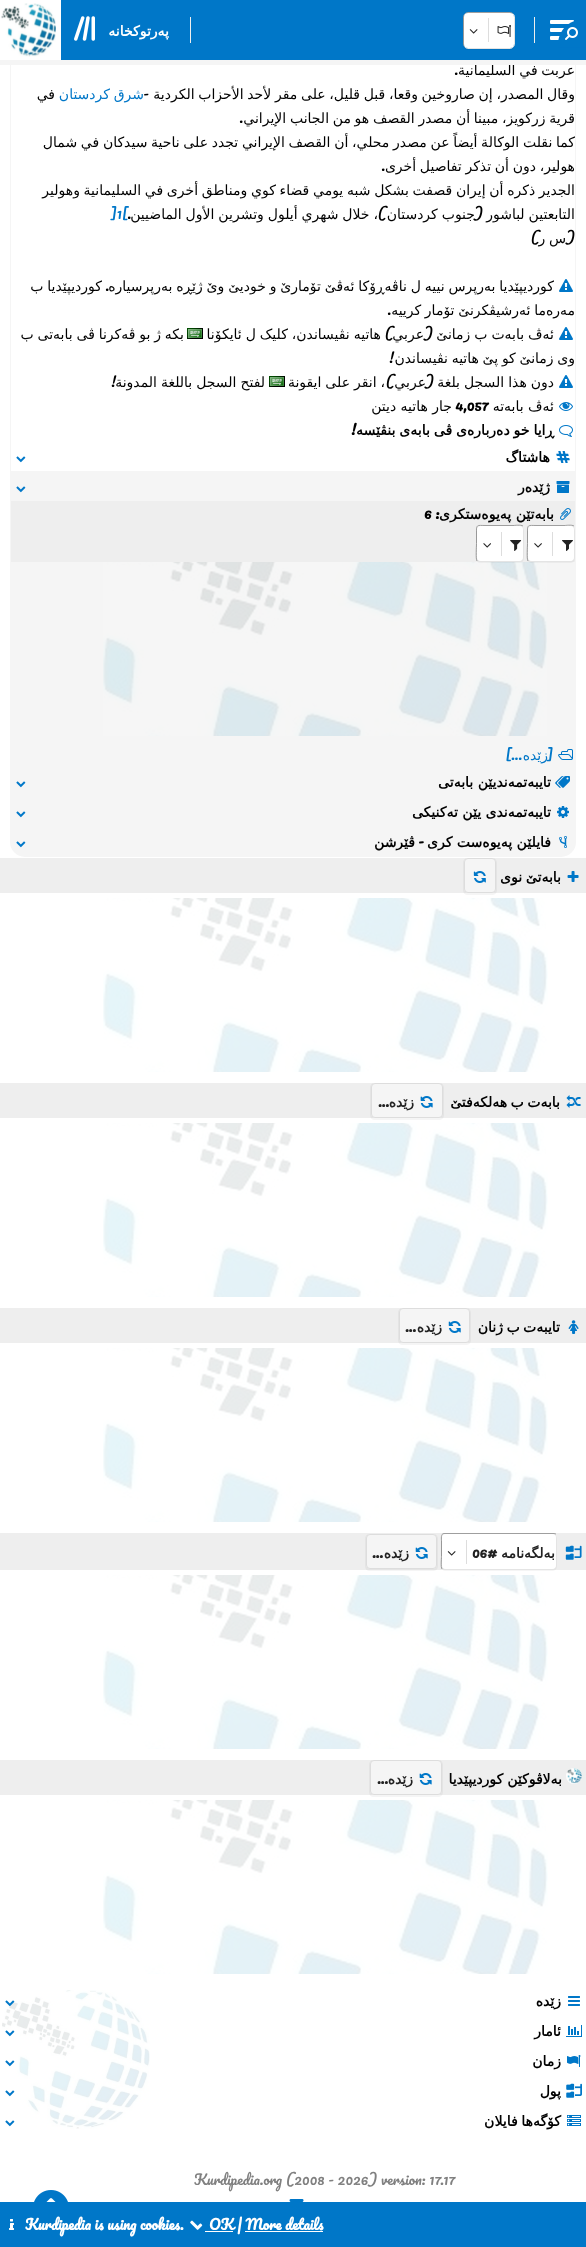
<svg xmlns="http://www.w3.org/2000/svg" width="586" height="2247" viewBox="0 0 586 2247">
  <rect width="100%" height="100%" fill="#ffffff"/>
  <rect x="10" y="-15" width="566" height="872" rx="15" fill="#f5f5f5"/>
  <rect x="61" y="0" width="525" height="60" fill="#0077c8"/>
  <image x="550" y="20" width="24" height="20" href="img2.png"/>
  <path d="M586 19.5H583C569 19.5 558 30.5 558 44.5V47.5H586Z" fill="#0077c8"/>
  <image x="565" y="27" width="13" height="13" href="img1.png"/>
  <rect x="534" y="17" width="1" height="26" fill="#eeeeee"/>
  <path d="M513 14C514 14.5 514.5 16 514.5 17V44C514.5 45 514 46.5 513 47C512.5 48 511 48.5 510 48.5H468C467 48.5 465.5 48 465 47" fill="none" stroke="#eeeeee"/>
  <path d="M465 47C464 46.5 463.5 45 463.5 44V17C463.5 16 464 14.5 465 14C465.5 13 467 12.5 468 12.5H510C511 12.5 512.5 13 513 14" fill="none" stroke="#9f9f9f"/>
  <path d="M468 13C465 13 463 15 463 18V45C463 48 465 50 468 50H510C513 50 515 48 515 45V18C515 15 513 13 510 13C512 13 514 15 514 17V44C514 46 512 48 510 48H468C466 48 464 46 464 44V17C464 15 466 13 468 13Z" fill="#000000" fill-opacity="0.04"/>
  <rect x="464" y="13" width="50" height="35" rx="4" fill="#ffffff"/>
  <image x="497" y="25" width="14" height="12" href="img3.png"/>
  <rect x="488" y="18" width="1" height="24" fill="#dddddd"/>
  <image x="469" y="29" width="9" height="5" href="img4.png"/>
  <rect x="190" y="17" width="1" height="26" fill="#eeeeee"/>
  <text x="169" y="36" font-family="DejaVu Sans" font-size="14" font-weight="bold" direction="rtl" fill="#ffffff">پەرتوکخانە</text>
  <image x="74" y="16" width="21" height="25" href="img5.png"/>
  <rect x="10" y="0" width="51" height="60" fill="#ffffff"/>
  <image x="1" y="3" width="55" height="54" href="img6.png"/>
  <rect x="11" y="65" width="564" height="406" fill="#ffffff"/>
  <text x="575" y="75" word-spacing="-0.75" font-family="DejaVu Sans" font-size="14" direction="rtl" fill="#000000">عربت في السليمانية</text>
  <rect x="0" y="60" width="586" height="5" fill="#f5f5f5"/>
  <text x="458" y="75" font-family="Pacifico" font-size="14" direction="rtl" fill="#000000">.</text>
  <text x="575" y="99" word-spacing="-0.75" font-family="DejaVu Sans" font-size="14" direction="rtl" fill="#000000">وقال المصدر، إن صاروخين وقعا، قبل قليل، على مقر لأحد الأحزاب الكردية</text>
  <text x="149" y="99" font-family="Pacifico" font-size="14" direction="rtl" fill="#000000">-</text>
  <text x="144" y="99" word-spacing="-0.75" font-family="DejaVu Sans" font-size="14" direction="rtl" fill="#0077c8">شرق كردستان</text>
  <text x="55" y="99" font-family="DejaVu Sans" font-size="14" direction="rtl" fill="#000000">في</text>
  <text x="575" y="123" word-spacing="-0.75" font-family="DejaVu Sans" font-size="14" direction="rtl" fill="#000000">قرية زركويز، مبينا أن مصدر القصف هو من الجانب الإيراني</text>
  <text x="243" y="123" font-family="Pacifico" font-size="14" direction="rtl" fill="#000000">.</text>
  <text x="575" y="147" word-spacing="-0.75" font-family="DejaVu Sans" font-size="14" direction="rtl" fill="#000000">كما نقلت الوكالة أيضاً عن مصدر محلي، أن القصف الإيراني تجدد على ناحية سيدكان في شمال</text>
  <text x="575" y="171" word-spacing="-0.75" font-family="DejaVu Sans" font-size="14" direction="rtl" fill="#000000">هولير، دون أن تذكر تفاصيل أخرى</text>
  <text x="385" y="171" font-family="Pacifico" font-size="14" direction="rtl" fill="#000000">.</text>
  <text x="575" y="195" word-spacing="-0.75" font-family="DejaVu Sans" font-size="14" direction="rtl" fill="#000000">الجدير ذكره أن إيران قصفت بشكل شبه يومي قضاء كوي ومناطق أخرى في السليمانية وهولير</text>
  <text x="378" y="219" word-spacing="-0.5" font-family="DejaVu Sans" font-size="14" direction="rtl" fill="#000000">، خلال شهري أيلول وتشرين الأول الماضيين</text>
  <text x="575" y="219" word-spacing="-0.5" font-family="DejaVu Sans" font-size="14" direction="rtl" fill="#000000">التابعتين لباشور</text>
  <text x="483" y="219" font-family="Pacifico" font-size="14" direction="rtl" fill="#000000">(</text>
  <text x="475" y="219" word-spacing="-0.5" font-family="DejaVu Sans" font-size="14" direction="rtl" fill="#000000">جنوب كردستان</text>
  <text x="386" y="219" font-family="Pacifico" font-size="14" direction="rtl" fill="#000000">)</text>
  <text x="131" y="219" font-family="Pacifico" font-size="14" direction="rtl" fill="#000000">.</text>
  <text x="111" y="219" font-family="Pacifico" font-size="14" fill="#0077c8">]1[</text>
  <text x="575" y="243" font-family="Pacifico" font-size="14" direction="rtl" fill="#000000">(</text>
  <text x="539" y="243" font-family="Pacifico" font-size="14" direction="rtl" fill="#000000">)</text>
  <text x="566" y="243" word-spacing="-0.75" font-family="DejaVu Sans" font-size="14" direction="rtl" fill="#000000">س ر</text>
  <text x="554" y="291" word-spacing="-0.6" font-family="DejaVu Sans" font-size="14" direction="rtl" fill="#000000">کوردیپێدیا بەرپرس نییە ل ناڤەڕۆکا ئەڤێ تۆمارێ و خودیێ وێ ژێڕە بەرپرسیارە</text>
  <image x="559" y="279" width="14" height="13" href="img7.png"/>
  <text x="109" y="291" font-family="Pacifico" font-size="14" direction="rtl" fill="#000000">.</text>
  <text x="102" y="291" word-spacing="-0.6" font-family="DejaVu Sans" font-size="14" direction="rtl" fill="#000000">کوردیپێدیا ب</text>
  <text x="575" y="315" word-spacing="-0.75" font-family="DejaVu Sans" font-size="14" direction="rtl" fill="#000000">مەرەما ئەرشیڤکرنێ تۆمار کرییە</text>
  <text x="391" y="315" font-family="Pacifico" font-size="14" direction="rtl" fill="#000000">.</text>
  <image x="559" y="327" width="14" height="13" href="img8.png"/>
  <text x="554" y="339" word-spacing="-0.5" font-family="DejaVu Sans" font-size="14" direction="rtl" fill="#000000">ئەڤ بابەت ب زمانێ</text>
  <text x="433" y="339" font-family="Pacifico" font-size="14" direction="rtl" fill="#000000">(</text>
  <text x="424" y="339" font-family="DejaVu Sans" font-size="14" direction="rtl" fill="#000000">عربي</text>
  <text x="393" y="339" font-family="Pacifico" font-size="14" direction="rtl" fill="#000000">)</text>
  <text x="381" y="339" word-spacing="-0.5" font-family="DejaVu Sans" font-size="14" direction="rtl" fill="#000000">هاتیە نڤیساندن، کلیک ل ئایکۆنا</text>
  <image x="187" y="328" width="16" height="11" href="img9.png"/>
  <text x="184" y="339" word-spacing="-0.6" font-family="DejaVu Sans" font-size="14" direction="rtl" fill="#000000">بکە ژ بو ڤەکرنا ڤی بابەتی ب</text>
  <text x="575" y="363" word-spacing="-0.75" font-family="DejaVu Sans" font-size="14" direction="rtl" fill="#000000">وی زمانێ کو پێ هاتیە نڤیساندن</text>
  <text x="394" y="363" font-family="Pacifico" font-size="14" direction="rtl" fill="#000000">!</text>
  <image x="559" y="375" width="14" height="13" href="img8.png"/>
  <text x="554" y="387" word-spacing="-0.5" font-family="DejaVu Sans" font-size="14" direction="rtl" fill="#000000">دون هذا السجل بلغة</text>
  <text x="434" y="387" font-family="Pacifico" font-size="14" direction="rtl" fill="#000000">(</text>
  <text x="426" y="387" font-family="DejaVu Sans" font-size="14" direction="rtl" fill="#000000">عربي</text>
  <text x="385" y="387" word-spacing="-0.5" font-family="DejaVu Sans" font-size="14" direction="rtl" fill="#000000">، انقر علی ايقونة</text>
  <text x="394" y="387" font-family="Pacifico" font-size="14" direction="rtl" fill="#000000">)</text>
  <image x="269" y="376" width="16" height="11" href="img9.png"/>
  <text x="116" y="387" font-family="Pacifico" font-size="14" direction="rtl" fill="#000000">!</text>
  <text x="265" y="387" word-spacing="-0.5" font-family="DejaVu Sans" font-size="14" direction="rtl" fill="#000000">لفتح السجل باللغة المدونة</text>
  <image x="559" y="402" width="14" height="9" href="img10.png"/>
  <text x="554" y="411" font-family="DejaVu Sans" font-size="14" direction="rtl" fill="#000000">ئەڤ بابەتە</text>
  <text x="455" y="411" font-family="Pacifico" font-size="14" font-weight="bold" fill="#000000">4,057</text>
  <text x="452" y="411" font-family="DejaVu Sans" font-size="14" direction="rtl" fill="#000000">جار هاتیە دیتن</text>
  <image x="559" y="425" width="14" height="12" href="img11.png"/>
  <text x="554" y="435" word-spacing="-0.5" font-family="DejaVu Sans" font-size="14" font-weight="bold" direction="rtl" fill="#000000">ڕایا خو دەربارەی ڤی بابەی بنڤێسە</text>
  <text x="356" y="435" font-family="Pacifico" font-size="14" font-weight="bold" direction="rtl" fill="#000000">!</text>
  <image x="556" y="451" width="14" height="12" href="img12.png"/>
  <text x="550" y="462" font-family="DejaVu Sans" font-size="14" font-weight="bold" direction="rtl" fill="#000000">هاشتاگ</text>
  <image x="16" y="456" width="10" height="7" href="img13.png"/>
  <image x="556" y="481" width="14" height="12" href="img14.png"/>
  <text x="550" y="492" font-family="DejaVu Sans" font-size="14" font-weight="bold" direction="rtl" fill="#000000">ژێدەر</text>
  <image x="16" y="486" width="10" height="7" href="img15.png"/>
  <rect x="11" y="501" width="564" height="61" fill="#eeeeee"/>
  <image x="560" y="508" width="11" height="12" href="img16.png"/>
  <text x="554" y="519" font-family="DejaVu Sans" font-size="14" font-weight="bold" direction="rtl" fill="#000000">بابەتێن پەیوەستکری</text>
  <text x="439" y="519" font-family="Pacifico" font-size="14" font-weight="bold" direction="rtl" fill="#000000">:</text>
  <text x="424" y="519" font-family="Pacifico" font-size="14" font-weight="bold" fill="#000000">6</text>
  <path d="M528 561C526.5 559 527.5 546.5 527.5 543.5V533C527.5 524 527.5 525.5 537 525.5H565C565 525.5 572 524.5 574 526" fill="none" stroke="#9f9f9f"/>
  <path d="M532 526C529 526 527 528 527 531V558C527 561 529 563 532 563H570C573 563 575 561 575 558V531C575 528 573 526 570 526C572 526 574 528 574 530V557C574 559 572 561 570 561H532C530 561 528 559 528 557V530C528 528 530 526 532 526Z" fill="#000000" fill-opacity="0.04"/>
  <rect x="528" y="526" width="46" height="35" rx="4" fill="#ffffff"/>
  <image x="562" y="540" width="11" height="11" href="img17.png"/>
  <rect x="552" y="532" width="1" height="24" fill="#dddddd"/>
  <image x="534" y="543" width="8" height="5" href="img18.png"/>
  <path d="M477 561C475.5 559 476.5 546.5 476.5 543.5V533C476.5 524 476.5 525.5 486 525.5H514C514 525.5 521 524.5 523 526" fill="none" stroke="#9f9f9f"/>
  <path d="M481 526C478 526 476 528 476 531V558C476 561 478 563 481 563H519C522 563 524 561 524 558V531C524 528 522 526 519 526C521 526 523 528 523 530V557C523 559 521 561 519 561H481C479 561 477 559 477 557V530C477 528 479 526 481 526Z" fill="#000000" fill-opacity="0.04"/>
  <rect x="477" y="526" width="46" height="35" rx="4" fill="#ffffff"/>
  <image x="510" y="540" width="12" height="11" href="img19.png"/>
  <rect x="501" y="532" width="1" height="24" fill="#dddddd"/>
  <image x="483" y="543" width="8" height="5" href="img20.png"/>
  <image x="103" y="562" width="444" height="174" href="img21.png"/>
  <image x="558" y="749" width="15" height="11" href="img22.png"/>
  <text x="553" y="760" font-family="Pacifico" font-size="14" direction="rtl" fill="#0077c8">[</text>
  <text x="548" y="760" font-family="DejaVu Sans" font-size="14" direction="rtl" fill="#0077c8">زێدە</text>
  <text x="522" y="760" font-family="Pacifico" font-size="14" direction="rtl" fill="#0077c8">...]</text>
  <image x="555" y="776" width="15" height="12" href="img23.png"/>
  <text x="551" y="787" font-family="DejaVu Sans" font-size="14" font-weight="bold" direction="rtl" fill="#000000">تایبەتمەندیێن بابەتی</text>
  <image x="16" y="781" width="10" height="7" href="img15.png"/>
  <image x="557" y="806" width="12" height="12" href="img24.png"/>
  <text x="551" y="817" font-family="DejaVu Sans" font-size="14" font-weight="bold" direction="rtl" fill="#000000">تایبەتمەندی یێن تەکنیکی</text>
  <image x="16" y="811" width="10" height="7" href="img15.png"/>
  <image x="559" y="836" width="8" height="12" href="img25.png"/>
  <text x="551" y="847" font-family="DejaVu Sans" font-size="14" font-weight="bold" direction="rtl" fill="#000000">فایلێن پەیوەست کری</text>
  <text x="424" y="847" font-family="Pacifico" font-size="14" font-weight="bold" direction="rtl" fill="#000000">-</text>
  <text x="415" y="847" font-family="DejaVu Sans" font-size="14" font-weight="bold" direction="rtl" fill="#000000">ڤێرشن</text>
  <image x="16" y="841" width="10" height="7" href="img15.png"/>
  <rect x="0" y="858" width="586" height="35" fill="#eeeeee"/>
  <image x="567" y="871" width="12" height="11" href="img26.png"/>
  <text x="561" y="882" word-spacing="-0.75" font-family="DejaVu Sans" font-size="14" font-weight="bold" direction="rtl" fill="#000000">بابەتێ نوی</text>
  <path d="M468 858C465 858 463 860 463 863V890C463 893 465 895 468 895H492C495 895 497 893 497 890V863C497 860 495 858 492 858C494 858 496 860 496 862V889C496 891 494 893 492 893H468C466 893 464 891 464 889V862C464 860 466 858 468 858Z" fill="#000000" fill-opacity="0.04"/>
  <rect x="464.5" y="858.5" width="31" height="34" rx="3.5" fill="#f5f5f5" stroke="#dddddd"/>
  <image x="473" y="871" width="13" height="12" href="img27.png"/>
  <image x="103" y="898" width="445" height="174" href="img28.png"/>
  <rect x="0" y="1083" width="586" height="35" fill="#eeeeee"/>
  <image x="566" y="1095" width="15" height="13" href="img29.png"/>
  <text x="560" y="1107" word-spacing="-1" font-family="DejaVu Sans" font-size="14" font-weight="bold" direction="rtl" fill="#000000">بابەت ب هەلکەفتێ</text>
  <path d="M375 1083C372 1083 370 1085 370 1088V1115C370 1118 372 1120 375 1120H439C442 1120 444 1118 444 1115V1088C444 1085 442 1083 439 1083C441 1083 443 1085 443 1087V1114C443 1116 441 1118 439 1118H375C373 1118 371 1116 371 1114V1087C371 1085 373 1083 375 1083Z" fill="#000000" fill-opacity="0.04"/>
  <rect x="371.5" y="1083.5" width="71" height="34" rx="3.5" fill="#f5f5f5" stroke="#dddddd"/>
  <image x="420" y="1096" width="13" height="12" href="img30.png"/>
  <text x="414" y="1107" font-family="DejaVu Sans" font-size="14" font-weight="bold" direction="rtl" fill="#222222">زێدە</text>
  <text x="389" y="1107" font-family="Pacifico" font-size="14" font-weight="bold" direction="rtl" fill="#222222">...</text>
  <image x="103" y="1123" width="445" height="174" href="img28.png"/>
  <rect x="0" y="1308" width="586" height="35" fill="#eeeeee"/>
  <image x="568" y="1320" width="11" height="14" href="img31.png"/>
  <text x="560" y="1332" word-spacing="-1" font-family="DejaVu Sans" font-size="14" font-weight="bold" direction="rtl" fill="#000000">تایبەت ب ژنان</text>
  <path d="M403 1308C400 1308 398 1310 398 1313V1340C398 1343 400 1345 403 1345H466C469 1345 471 1343 471 1340V1313C471 1310 469 1308 466 1308C468 1308 470 1310 470 1312V1339C470 1341 468 1343 466 1343H403C401 1343 399 1341 399 1339V1312C399 1310 401 1308 403 1308Z" fill="#000000" fill-opacity="0.04"/>
  <rect x="399.5" y="1308.5" width="70" height="34" rx="3.5" fill="#f5f5f5" stroke="#dddddd"/>
  <image x="448" y="1321" width="13" height="12" href="img32.png"/>
  <text x="442" y="1332" font-family="DejaVu Sans" font-size="14" font-weight="bold" direction="rtl" fill="#222222">زێدە</text>
  <text x="416" y="1332" font-family="Pacifico" font-size="14" font-weight="bold" direction="rtl" fill="#222222">...</text>
  <image x="103" y="1348" width="445" height="174" href="img28.png"/>
  <rect x="0" y="1533" width="586" height="37" fill="#eeeeee"/>
  <image x="565" y="1545" width="17" height="15" href="img33.png"/>
  <path d="M442 1569C440.5 1567 441.5 1559 441.5 1556.5V1541C441.5 1539.5 440.5 1533.5 444 1533.5H554L556 1534" fill="none" stroke="#9f9f9f"/>
  <path d="M446 1534C443 1534 441 1536 441 1539V1566C441 1569 443 1571 446 1571H552C555 1571 557 1569 557 1566V1539C557 1536 555 1534 552 1534C554 1534 556 1536 556 1538V1565C556 1567 554 1569 552 1569H446C444 1569 442 1567 442 1565V1538C442 1536 444 1534 446 1534Z" fill="#000000" fill-opacity="0.04"/>
  <rect x="442" y="1534" width="114" height="35" rx="4" fill="#ffffff"/>
  <text x="555" y="1558" font-family="DejaVu Sans" font-size="14" font-weight="bold" direction="rtl" fill="#222222">بەلگەنامە</text>
  <text x="497" y="1558" font-family="Pacifico" font-size="14" font-weight="bold" direction="rtl" fill="#222222">#</text>
  <text x="472" y="1558" font-family="Pacifico" font-size="14" font-weight="bold" fill="#222222">06</text>
  <rect x="466" y="1540" width="1" height="24" fill="#dddddd"/>
  <image x="447" y="1551" width="9" height="5" href="img34.png"/>
  <path d="M370 1534C367 1534 365 1536 365 1539V1566C365 1569 367 1571 370 1571H433C436 1571 438 1569 438 1566V1539C438 1536 436 1534 433 1534C435 1534 437 1536 437 1538V1565C437 1567 435 1569 433 1569H370C368 1569 366 1567 366 1565V1538C366 1536 368 1534 370 1534Z" fill="#000000" fill-opacity="0.04"/>
  <rect x="366.5" y="1534.5" width="70" height="34" rx="3.5" fill="#f5f5f5" stroke="#dddddd"/>
  <image x="415" y="1547" width="13" height="12" href="img35.png"/>
  <text x="409" y="1558" font-family="DejaVu Sans" font-size="14" font-weight="bold" direction="rtl" fill="#222222">زێدە</text>
  <text x="383" y="1558" font-family="Pacifico" font-size="14" font-weight="bold" direction="rtl" fill="#222222">...</text>
  <image x="103" y="1575" width="445" height="174" href="img28.png"/>
  <rect x="0" y="1760" width="586" height="35" fill="#eeeeee"/>
  <image x="566" y="1768" width="16" height="16" href="img36.png"/>
  <text x="562" y="1784" word-spacing="-0.5" font-family="DejaVu Sans" font-size="14" font-weight="bold" direction="rtl" fill="#000000">بەلاڤوکێن کوردیپێدیا</text>
  <path d="M374 1760C371 1760 369 1762 369 1765V1792C369 1795 371 1797 374 1797H438C441 1797 443 1795 443 1792V1765C443 1762 441 1760 438 1760C440 1760 442 1762 442 1764V1791C442 1793 440 1795 438 1795H374C372 1795 370 1793 370 1791V1764C370 1762 372 1760 374 1760Z" fill="#000000" fill-opacity="0.04"/>
  <rect x="370.5" y="1760.5" width="71" height="34" rx="3.5" fill="#f5f5f5" stroke="#dddddd"/>
  <image x="419" y="1773" width="13" height="12" href="img30.png"/>
  <text x="413" y="1784" font-family="DejaVu Sans" font-size="14" font-weight="bold" direction="rtl" fill="#222222">زێدە</text>
  <text x="388" y="1784" font-family="Pacifico" font-size="14" font-weight="bold" direction="rtl" fill="#222222">...</text>
  <image x="103" y="1800" width="445" height="174" href="img28.png"/>
  <image x="2" y="1990" width="148" height="139" href="img37.png"/>
  <image x="568" y="1996" width="12" height="10" href="img38.png"/>
  <text x="561" y="2006" font-family="DejaVu Sans" font-size="14" font-weight="bold" direction="rtl" fill="#000000">زێدە</text>
  <image x="5" y="2000" width="10" height="7" href="img39.png"/>
  <image x="566" y="2025" width="16" height="12" href="img40.png"/>
  <text x="561" y="2036" font-family="DejaVu Sans" font-size="14" font-weight="bold" direction="rtl" fill="#000000">ئامار</text>
  <image x="5" y="2030" width="10" height="7" href="img13.png"/>
  <image x="567" y="2055" width="14" height="12" href="img41.png"/>
  <text x="561" y="2066" font-family="DejaVu Sans" font-size="14" font-weight="bold" direction="rtl" fill="#000000">زمان</text>
  <image x="5" y="2060" width="10" height="7" href="img13.png"/>
  <image x="566" y="2083" width="16" height="15" href="img42.png"/>
  <text x="561" y="2096" font-family="DejaVu Sans" font-size="14" font-weight="bold" direction="rtl" fill="#000000">پول</text>
  <image x="5" y="2090" width="10" height="7" href="img13.png"/>
  <image x="567" y="2115" width="14" height="11" href="img43.png"/>
  <text x="561" y="2126" word-spacing="-0.75" font-family="DejaVu Sans" font-size="14" font-weight="bold" direction="rtl" fill="#000000">کۆگەها فایلان</text>
  <image x="5" y="2120" width="10" height="7" href="img13.png"/>
  <text x="194" y="2185" font-family="Pacifico" font-size="14" fill="#808080">Kurdipedia.org (2008 - 2026) version: 17.17</text>
  <image x="289" y="2199" width="15" height="3" href="img44.png"/>
  <image x="34" y="2190" width="34" height="12" href="img45.png"/>
  <rect x="0" y="2202" width="586" height="45" fill="#0077c8"/>
  <rect x="205" y="2231" width="28" height="1" fill="#ffffff"/>
  <text x="209" y="2230" font-family="Pacifico" font-size="14" font-weight="bold" fill="#ffffff">OK | More details</text>
  <image x="190" y="2220" width="13" height="10" href="img46.png"/>
  <text x="25" y="2230" font-family="Pacifico" font-size="14" font-weight="bold" fill="#ffffff">Kurdipedia is using cookies.</text>
  <image x="9" y="2219" width="5" height="11" href="img47.png"/>
  <rect x="245" y="2231" width="78" height="1" fill="#ffffff"/>
</svg>
